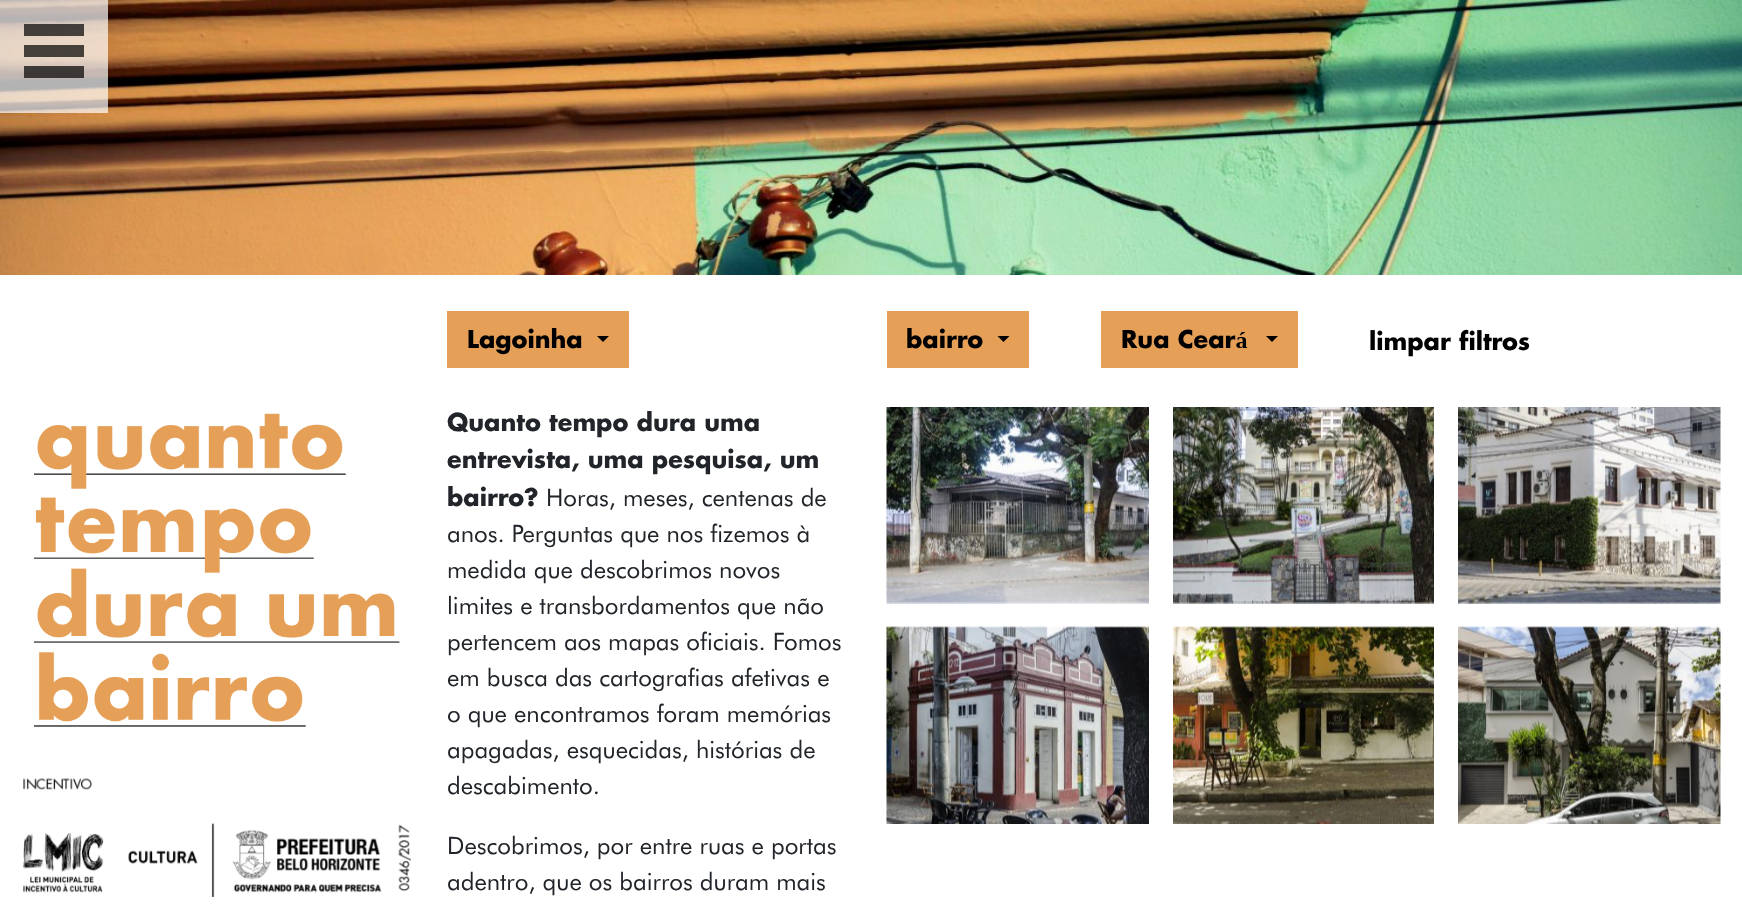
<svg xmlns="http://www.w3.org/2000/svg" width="1742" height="914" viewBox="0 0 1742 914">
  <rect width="100%" height="100%" fill="#ffffff"/>
  <image x="0" y="0" width="1742" height="275" href="img1.png"/>
  <rect x="0" y="0" width="108" height="113" fill="#ffffff" fill-opacity="0.7"/>
  <rect x="24" y="45" width="60" height="12" fill="#000000" fill-opacity="0.7"/>
  <rect x="24" y="24" width="60" height="12" fill="#000000" fill-opacity="0.7"/>
  <rect x="24" y="66" width="60" height="12" fill="#000000" fill-opacity="0.7"/>
  <image x="34" y="413" width="366" height="314" href="img2.png"/>
  <image x="22" y="778" width="389" height="119" href="img3.png"/>
  <rect x="447" y="311" width="182" height="57" fill="#e59f57"/>
  <text x="467" y="348" font-family="Futura" font-size="24" font-weight="bold" fill="#000000">Lagoinha</text>
  <path d="M597 336H609L603 342Z" fill="#000000"/>
  <text x="447" y="431" font-family="Futura" font-size="24" font-weight="bold" fill="#212529">Quanto tempo dura uma</text>
  <text x="447" y="468" font-family="Futura" font-size="24" font-weight="bold" fill="#212529">entrevista, uma pesquisa, um</text>
  <text x="447" y="506" font-family="Futura" font-size="24" font-weight="bold" fill="#212529">bairro?</text>
  <text x="546" y="506" font-family="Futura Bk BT" font-size="24" fill="#212529">Horas, meses, centenas de</text>
  <text x="447" y="542" font-family="Futura Bk BT" font-size="24" fill="#212529">anos. Perguntas que nos fizemos à</text>
  <text x="447" y="578" font-family="Futura Bk BT" font-size="24" fill="#212529">medida que descobrimos novos</text>
  <text x="447" y="614" font-family="Futura Bk BT" font-size="24" fill="#212529">limites e transbordamentos que não</text>
  <text x="447" y="650" font-family="Futura Bk BT" font-size="24" fill="#212529">pertencem aos mapas oficiais. Fomos</text>
  <text x="447" y="686" font-family="Futura Bk BT" font-size="24" fill="#212529">em busca das cartografias afetivas e</text>
  <text x="447" y="722" font-family="Futura Bk BT" font-size="24" fill="#212529">o que encontramos foram memórias</text>
  <text x="447" y="758" font-family="Futura Bk BT" font-size="24" fill="#212529">apagadas, esquecidas, histórias de</text>
  <text x="447" y="794" font-family="Futura Bk BT" font-size="24" fill="#212529">descabimento.</text>
  <text x="447" y="854" font-family="Futura Bk BT" font-size="24" fill="#212529">Descobrimos, por entre ruas e portas</text>
  <text x="447" y="890" font-family="Futura Bk BT" font-size="24" fill="#212529">adentro, que os bairros duram mais</text>
  <rect x="887" y="311" width="142" height="57" fill="#e59f57"/>
  <text x="906" y="348" font-family="Futura" font-size="24" font-weight="bold" fill="#000000">bairro</text>
  <path d="M997.5 336H1009.5L1003.5 342Z" fill="#000000"/>
  <rect x="1101" y="311" width="197" height="57" fill="#e59f57"/>
  <text x="1121" y="348" font-family="Futura" font-size="24" font-weight="bold" fill="#000000">Rua Ceará</text>
  <path d="M1266 336H1278L1272 342Z" fill="#000000"/>
  <text x="1369" y="350" font-family="Futura" font-size="24" font-weight="bold" fill="#000000">limpar filtros</text>
  <image x="886" y="407" width="263" height="197" href="img4.png"/>
  <image x="1173" y="407" width="261" height="197" href="img5.png"/>
  <image x="1458" y="407" width="263" height="197" href="img6.png"/>
  <image x="886" y="626" width="263" height="198" href="img7.png"/>
  <image x="1173" y="626" width="261" height="198" href="img8.png"/>
  <image x="1458" y="626" width="263" height="198" href="img9.png"/>
</svg>
